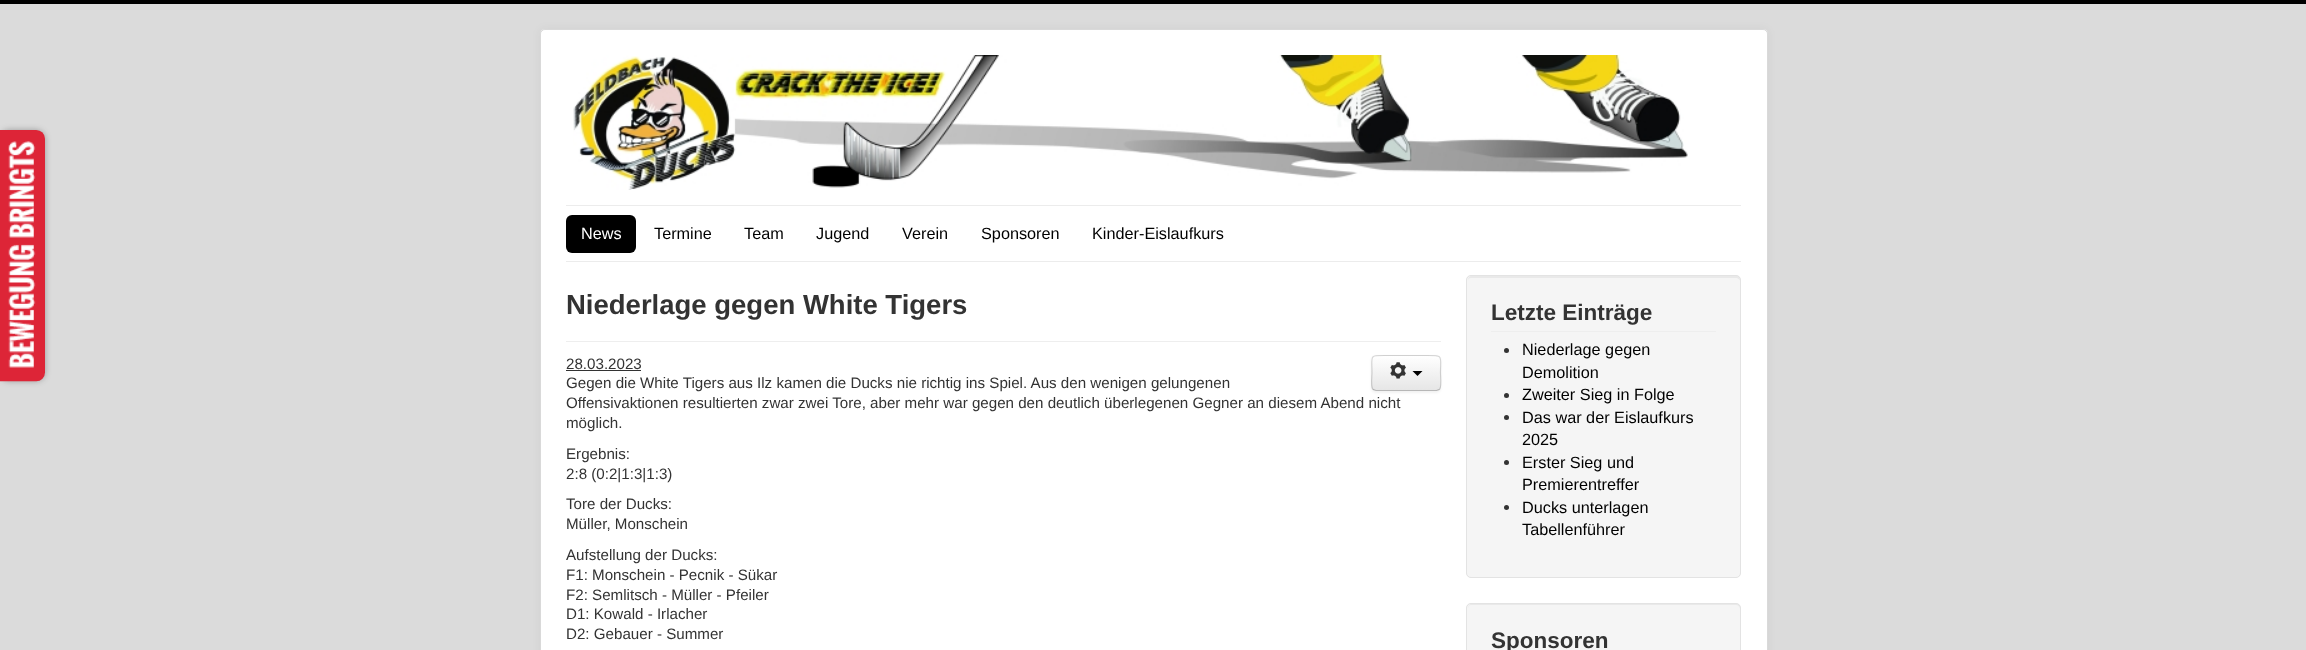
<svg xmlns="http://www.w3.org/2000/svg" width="2306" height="650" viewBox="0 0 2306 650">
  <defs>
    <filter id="blur1" x="-50%" y="-200%" width="200%" height="500%"><feGaussianBlur stdDeviation="3"/></filter>
    <filter id="blur2" x="-50%" y="-200%" width="200%" height="500%"><feGaussianBlur stdDeviation="4"/></filter>
    <filter id="blur3" x="-50%" y="-200%" width="200%" height="500%"><feGaussianBlur stdDeviation="1"/></filter>
    <clipPath id="clip1"><rect x="1371" y="355" width="70" height="36" rx="5"/></clipPath>
    <linearGradient id="g1" gradientUnits="userSpaceOnUse" x1="1406" y1="356" x2="1406" y2="390"><stop offset="0" stop-color="#ffffff"/><stop offset="1" stop-color="#e6e6e6"/></linearGradient>
  </defs>
  <rect width="100%" height="100%" fill="#dbdbdb"/>
  <rect x="0" y="0" width="2306" height="4" fill="#000000"/>
  <rect x="0" y="130" width="45" height="251" rx="9" fill="#000000" fill-opacity="0.3" filter="url(#blur1)"/>
  <image x="0" y="130" width="45" height="252" href="img1.png"/>
  <rect x="540" y="29" width="1228" height="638" rx="5" fill="#000000" fill-opacity="0.05" filter="url(#blur2)"/>
  <rect x="540" y="29" width="1228" height="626" rx="5" fill="#ffffff"/>
  <rect x="540.5" y="29.5" width="1227" height="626" rx="4.5" fill="none" stroke="#000000" stroke-opacity="0.15"/>
  <image x="573" y="55" width="1115" height="135" href="img2.png"/>
  <rect x="566" y="205" width="1175" height="1" fill="#ececec"/>
  <rect x="566" y="261" width="1175" height="1" fill="#ececec"/>
  <rect x="566" y="215" width="70" height="38" rx="6" fill="#000000"/>
  <text x="581" y="239" font-family="Liberation Sans" font-size="16.25" fill="#ffffff">News</text>
  <text x="654" y="239" font-family="Liberation Sans" font-size="16.25" fill="#000000">Termine</text>
  <text x="744" y="239" font-family="Liberation Sans" font-size="16.25" fill="#000000">Team</text>
  <text x="816" y="239" font-family="Liberation Sans" font-size="16.25" fill="#000000">Jugend</text>
  <text x="902" y="239" font-family="Liberation Sans" font-size="16.25" fill="#000000">Verein</text>
  <text x="981" y="239" font-family="Liberation Sans" font-size="16.25" fill="#000000">Sponsoren</text>
  <text x="1092" y="239" font-family="Liberation Sans" font-size="16.25" fill="#000000">Kinder-Eislaufkurs</text>
  <rect x="566" y="341" width="875" height="1" fill="#eeeeee"/>
  <text x="566" y="314" font-family="Liberation Sans" font-size="27.5" font-weight="bold" fill="#333333">Niederlage gegen White Tigers</text>
  <text x="566" y="369" font-family="Liberation Sans" font-size="15.15" fill="#333333">28.03.2023</text>
  <rect x="566" y="370" width="75" height="1" fill="#333333"/>
  <text x="566" y="388" font-family="Liberation Sans" font-size="15.15" fill="#333333">Gegen die White Tigers aus Ilz kamen die Ducks nie richtig ins Spiel. Aus den wenigen gelungenen</text>
  <text x="566" y="408" font-family="Liberation Sans" font-size="15.15" fill="#333333">Offensivaktionen resultierten zwar zwei Tore, aber mehr war gegen den deutlich überlegenen Gegner an diesem Abend nicht</text>
  <text x="566" y="428" font-family="Liberation Sans" font-size="15.15" fill="#333333">möglich.</text>
  <text x="566" y="459" font-family="Liberation Sans" font-size="15.15" fill="#333333">Ergebnis:</text>
  <text x="566" y="479" font-family="Liberation Sans" font-size="15.15" fill="#333333">2:8 (0:2|1:3|1:3)</text>
  <text x="566" y="509" font-family="Liberation Sans" font-size="15.15" fill="#333333">Tore der Ducks:</text>
  <text x="566" y="529" font-family="Liberation Sans" font-size="15.15" fill="#333333">Müller, Monschein</text>
  <text x="566" y="560" font-family="Liberation Sans" font-size="15.15" fill="#333333">Aufstellung der Ducks:</text>
  <text x="566" y="580" font-family="Liberation Sans" font-size="15.15" fill="#333333">F1: Monschein - Pecnik - Sükar</text>
  <text x="566" y="600" font-family="Liberation Sans" font-size="15.15" fill="#333333">F2: Semlitsch - Müller - Pfeiler</text>
  <text x="566" y="619" font-family="Liberation Sans" font-size="15.15" fill="#333333">D1: Kowald - Irlacher</text>
  <text x="566" y="639" font-family="Liberation Sans" font-size="15.15" fill="#333333">D2: Gebauer - Summer</text>
  <rect x="1371" y="356" width="70" height="37" rx="5" fill="#000000" fill-opacity="0.05" filter="url(#blur3)"/>
  <rect x="1371" y="355" width="70" height="36" rx="5" fill="#f5f5f5"/>
  <g clip-path="url(#clip1)">
    <rect x="1371" y="356" width="70" height="34" fill="url(#g1)"/>
  </g>
  <path d="M1439.5 389.5L1436.5 390.5H1376L1373 389.5" fill="none" stroke="#000000" stroke-opacity="0.25" stroke-width="1.2"/>
  <path d="M1373 389.5C1370.5 386.5 1372 376.5 1372 373C1372 355 1368.5 355.5 1386 355.5H1426C1444 355.5 1440.5 355 1440.5 373C1440.5 376.5 1442 386.5 1439.5 389.5" fill="none" stroke="#000000" stroke-opacity="0.15" stroke-width="1.2"/>
  <image x="1390" y="362" width="16" height="17" href="img3.png"/>
  <path d="M1412.5 371H1422.5L1417.5 376Z" fill="#000000"/>
  <rect x="1466" y="275" width="275" height="303" rx="5" fill="#f5f5f5"/>
  <path d="M1471 278H1737L1740 280V281C1740 278 1739 276 1736 276H1472C1469 276 1468 278 1468 281C1468 279 1469 278 1471 278Z" fill="#e9e9e9"/>
  <rect x="1466.5" y="275.5" width="274" height="302" rx="4.5" fill="none" stroke="#e3e3e3"/>
  <rect x="1491" y="331" width="225" height="1" fill="#eeeeee"/>
  <text x="1491" y="320" font-family="Liberation Sans" font-size="22.5" font-weight="bold" fill="#333333">Letzte Einträge</text>
  <circle cx="1506.5" cy="350.5" r="2.5" fill="#333333"/>
  <text x="1522" y="355" font-family="Liberation Sans" font-size="16.25" fill="#000000">Niederlage gegen</text>
  <text x="1522" y="378" font-family="Liberation Sans" font-size="16.25" fill="#000000">Demolition</text>
  <circle cx="1506.5" cy="395.5" r="2.5" fill="#333333"/>
  <text x="1522" y="400" font-family="Liberation Sans" font-size="16.25" fill="#000000">Zweiter Sieg in Folge</text>
  <circle cx="1506.5" cy="417.5" r="2.5" fill="#333333"/>
  <text x="1522" y="423" font-family="Liberation Sans" font-size="16.25" fill="#000000">Das war der Eislaufkurs</text>
  <text x="1522" y="445" font-family="Liberation Sans" font-size="16.25" fill="#000000">2025</text>
  <circle cx="1506.5" cy="462.5" r="2.5" fill="#333333"/>
  <text x="1522" y="468" font-family="Liberation Sans" font-size="16.25" fill="#000000">Erster Sieg und</text>
  <text x="1522" y="490" font-family="Liberation Sans" font-size="16.25" fill="#000000">Premierentreffer</text>
  <circle cx="1506.5" cy="507.5" r="2.5" fill="#333333"/>
  <text x="1522" y="513" font-family="Liberation Sans" font-size="16.25" fill="#000000">Ducks unterlagen</text>
  <text x="1522" y="535" font-family="Liberation Sans" font-size="16.25" fill="#000000">Tabellenführer</text>
  <rect x="1466" y="603" width="275" height="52" rx="5" fill="#f5f5f5"/>
  <path d="M1471 605H1736C1738 605 1740 607 1740 609C1740 606 1739 604 1736 604H1472C1469 604 1468 606 1468 609C1468 607 1469 605 1471 605Z" fill="#e9e9e9"/>
  <rect x="1466.5" y="603.5" width="274" height="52" rx="4.5" fill="none" stroke="#e3e3e3"/>
  <text x="1491" y="648" font-family="Liberation Sans" font-size="22.5" font-weight="bold" fill="#333333">Sponsoren</text>
</svg>
